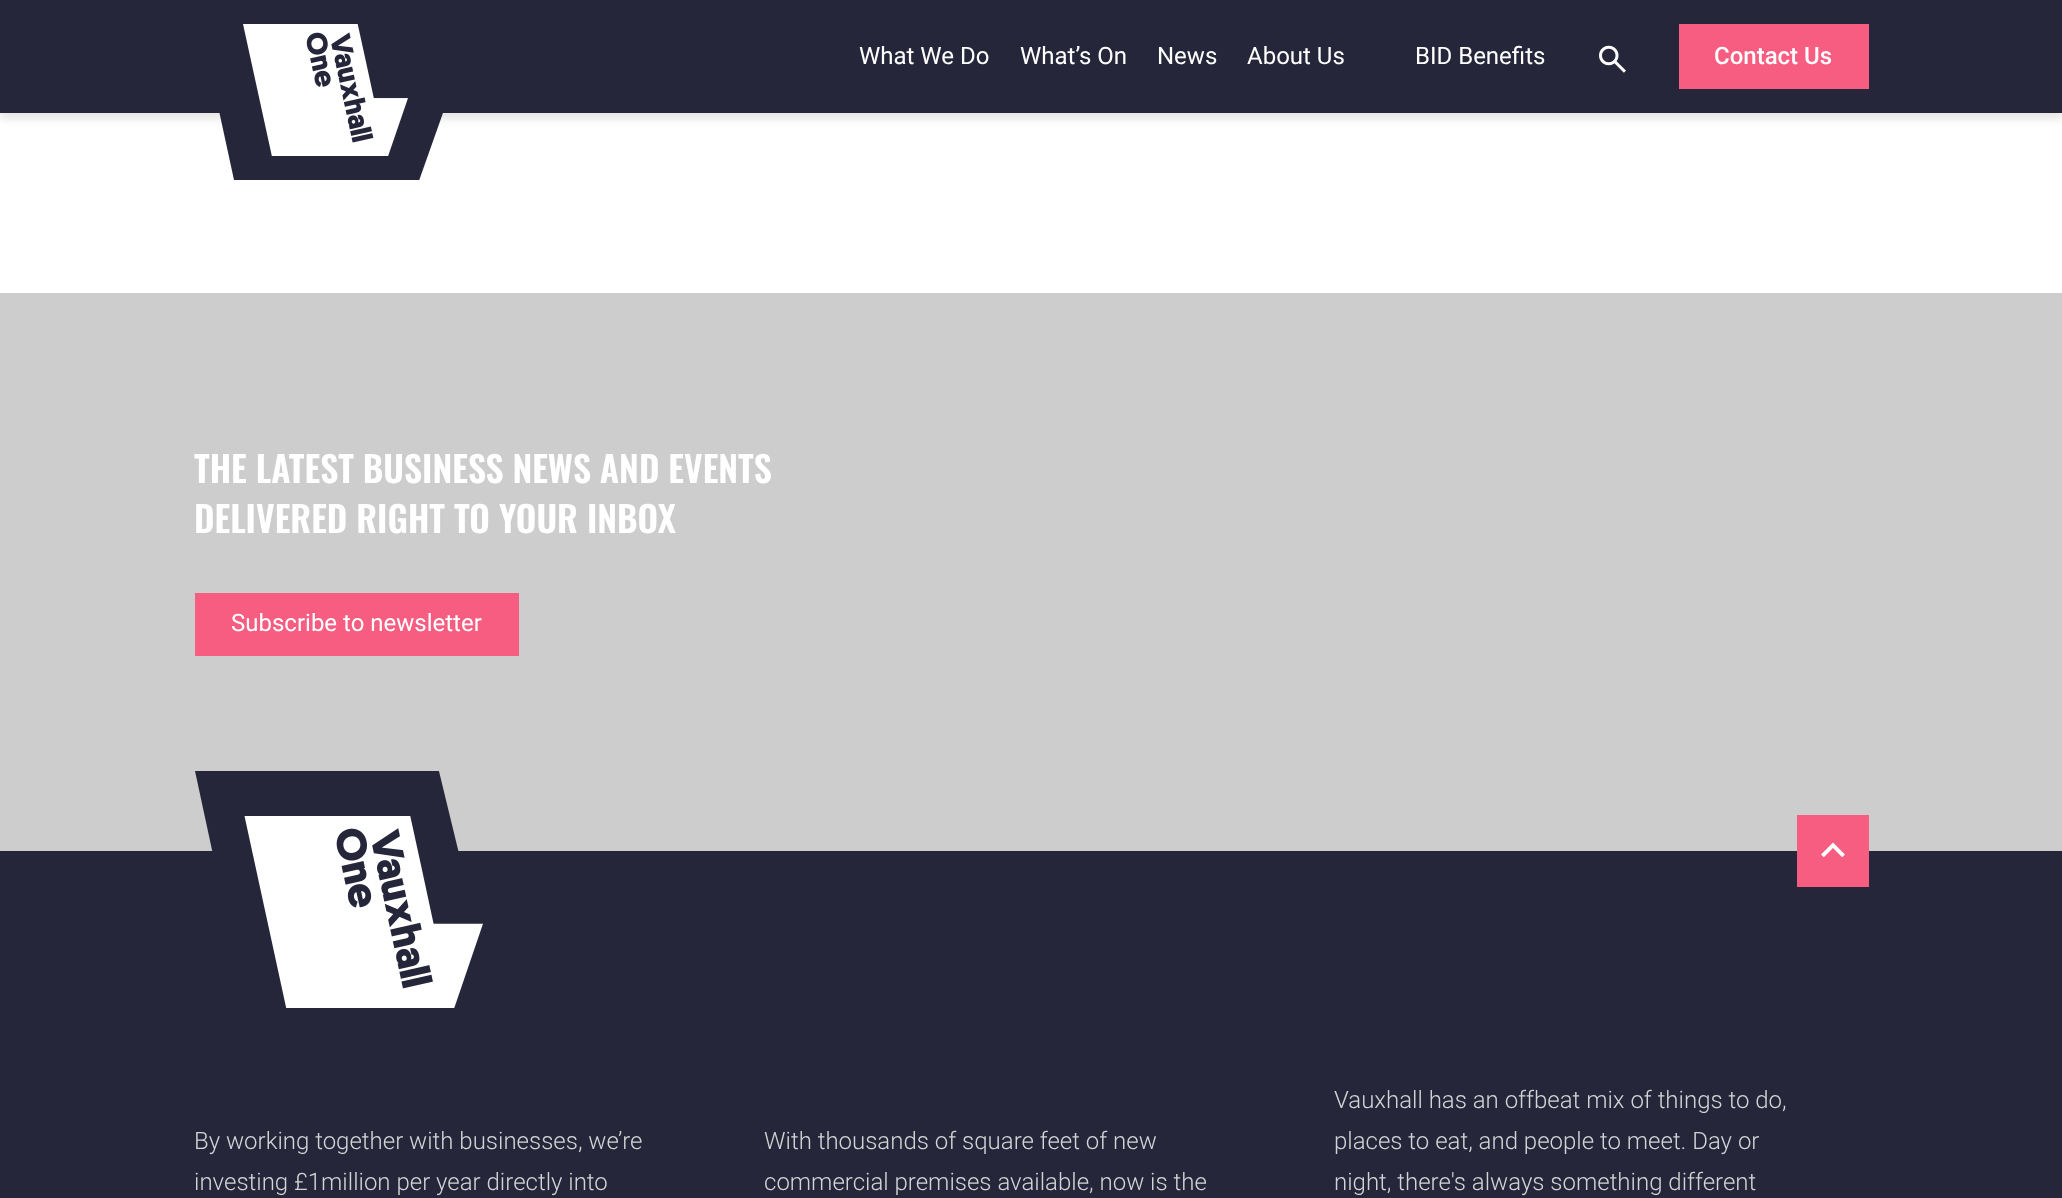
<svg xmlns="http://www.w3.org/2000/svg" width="2062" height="1198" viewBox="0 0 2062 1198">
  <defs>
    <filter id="blur1" x="-50%" y="-200%" width="200%" height="500%"><feGaussianBlur stdDeviation="4.5"/></filter>
  </defs>
  <rect width="100%" height="100%" fill="#ffffff"/>
  <rect x="0" y="6" width="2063" height="113" fill="#000000" fill-opacity="0.1" filter="url(#blur1)"/>
  <rect x="0" y="0" width="2062" height="113" fill="#252639"/>
  <image x="219" y="24" width="224" height="156" href="img1.png"/>
  <text x="859" y="64" font-family="Roboto" font-size="24" fill="#ffffff">What We Do</text>
  <text x="1020" y="64" font-family="Roboto" font-size="24" fill="#ffffff">What’s On</text>
  <text x="1157" y="64" font-family="Roboto" font-size="24" fill="#ffffff">News</text>
  <text x="1247" y="64" font-family="Roboto" font-size="24" fill="#ffffff">About Us</text>
  <text x="1415" y="64" font-family="Roboto" font-size="24" fill="#ffffff">BID Benefits</text>
  <image x="1599" y="45" width="27" height="28" href="img2.png"/>
  <rect x="1679" y="24" width="190" height="65" fill="#f65d80"/>
  <text x="1714" y="64" font-family="Roboto" font-size="24" font-weight="500" fill="#ffffff">Contact Us</text>
  <rect x="0" y="293" width="2062" height="558" fill="#cdcdcd"/>
  <text x="194" y="483" font-family="Oswald" font-size="35.75" font-weight="600" fill="#ffffff">THE LATEST BUSINESS NEWS AND EVENTS</text>
  <text x="194" y="533" font-family="Oswald" font-size="35.75" font-weight="600" fill="#ffffff">DELIVERED RIGHT TO YOUR INBOX</text>
  <rect x="195" y="593" width="324" height="63" fill="#f65d80"/>
  <text x="231" y="631" font-family="Roboto" font-size="24" fill="#ffffff">Subscribe to newsletter</text>
  <rect x="0" y="851" width="2062" height="347" fill="#252639"/>
  <rect x="1797" y="815" width="72" height="72" fill="#f65d80"/>
  <image x="1821" y="842" width="24" height="16" href="img3.png"/>
  <image x="195" y="771" width="288" height="237" href="img4.png"/>
  <text x="194" y="1149" font-family="Roboto" font-size="24" font-weight="300" fill="#d3d4d7">By working together with businesses, we’re</text>
  <text x="194" y="1190" font-family="Roboto" font-size="24" font-weight="300" fill="#d3d4d7">investing £1million per year directly into</text>
  <text x="764" y="1149" font-family="Roboto" font-size="24" font-weight="300" fill="#d3d4d7">With thousands of square feet of new</text>
  <text x="764" y="1190" font-family="Roboto" font-size="24" font-weight="300" fill="#d3d4d7">commercial premises available, now is the</text>
  <text x="1334" y="1108" font-family="Roboto" font-size="24" font-weight="300" fill="#d3d4d7">Vauxhall has an offbeat mix of things to do,</text>
  <text x="1334" y="1149" font-family="Roboto" font-size="24" font-weight="300" fill="#d3d4d7">places to eat, and people to meet. Day or</text>
  <text x="1334" y="1190" font-family="Roboto" font-size="24" font-weight="300" fill="#d3d4d7">night, there's always something different</text>
</svg>
